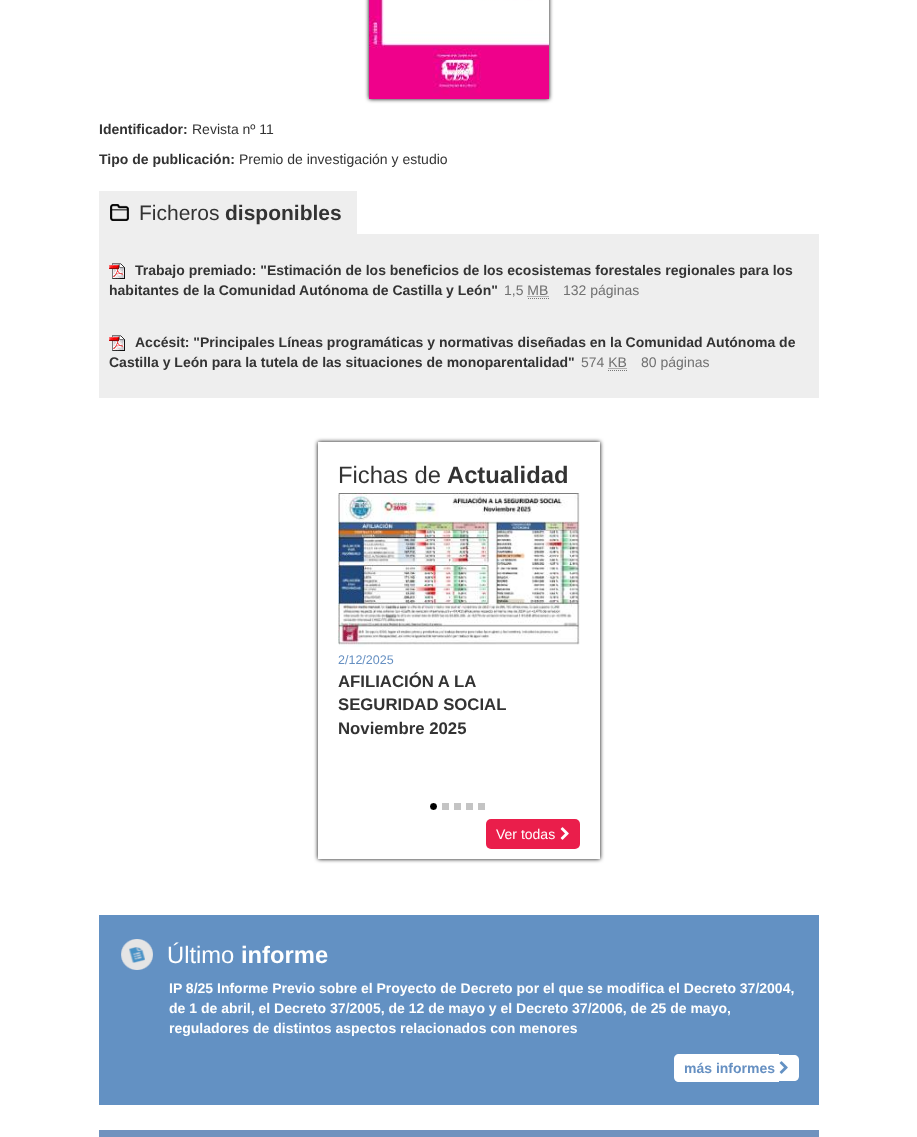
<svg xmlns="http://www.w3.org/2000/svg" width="917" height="1137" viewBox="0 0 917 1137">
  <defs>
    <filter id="blur1" x="-50%" y="-200%" width="200%" height="500%"><feGaussianBlur stdDeviation="2"/></filter>
    <clipPath id="clip1"><path d="M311 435H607V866H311ZM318 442H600V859H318Z" clip-rule="evenodd"/></clipPath>
  </defs>
  <rect width="100%" height="100%" fill="#ffffff"/>
  <rect x="369" y="-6" width="180" height="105" fill="#000000" filter="url(#blur1)"/>
  <image x="369" y="0" width="180" height="99" href="img1.png"/>
  <text x="99" y="134" font-family="Liberation Sans" font-size="14" font-weight="bold" fill="#333333">Identificador:</text>
  <text x="192" y="134" font-family="Liberation Sans" font-size="14" fill="#333333">Revista nº 11</text>
  <text x="99" y="164" font-family="Liberation Sans" font-size="14" font-weight="bold" fill="#333333">Tipo de publicación:</text>
  <text x="239" y="164" font-family="Liberation Sans" font-size="14" fill="#333333">Premio de investigación y estudio</text>
  <rect x="99" y="191" width="258" height="43" fill="#eeeeee"/>
  <image x="110" y="204" width="19" height="17" href="img2.png"/>
  <text x="139" y="220" font-family="Liberation Sans" font-size="21" fill="#333333">Ficheros</text>
  <text x="225" y="220" font-family="Liberation Sans" font-size="21" font-weight="bold" fill="#333333">disponibles</text>
  <rect x="99" y="234" width="720" height="164" fill="#eeeeee"/>
  <image x="109" y="263" width="16" height="16" href="img3.png"/>
  <text x="135" y="275" font-family="Liberation Sans" font-size="14" font-weight="bold" fill="#333333">Trabajo premiado: "Estimación de los beneficios de los ecosistemas forestales regionales para los</text>
  <text x="109" y="295" font-family="Liberation Sans" font-size="14" font-weight="bold" fill="#333333">habitantes de la Comunidad Autónoma de Castilla y León"</text>
  <text x="504" y="295" font-family="Liberation Sans" font-size="14" fill="#707070">1,5 MB</text>
  <path d="M528 298.5H549" fill="none" stroke="#777777" stroke-dasharray="1 1"/>
  <path d="M527.5 296.5H548.5" fill="none" stroke="#707070" stroke-dasharray="1 1"/>
  <text x="563" y="295" font-family="Liberation Sans" font-size="14" fill="#707070">132 páginas</text>
  <image x="109" y="335" width="16" height="16" href="img3.png"/>
  <text x="135" y="347" font-family="Liberation Sans" font-size="14" font-weight="bold" fill="#333333">Accésit: "Principales Líneas programáticas y normativas diseñadas en la Comunidad Autónoma de</text>
  <text x="109" y="367" font-family="Liberation Sans" font-size="14" font-weight="bold" fill="#333333">Castilla y León para la tutela de las situaciones de monoparentalidad"</text>
  <text x="581" y="367" font-family="Liberation Sans" font-size="14" fill="#707070">574 KB</text>
  <path d="M608 370.5H627" fill="none" stroke="#777777" stroke-dasharray="1 1"/>
  <path d="M608.5 368.5H627" fill="none" stroke="#707070" stroke-dasharray="1 1"/>
  <text x="641" y="367" font-family="Liberation Sans" font-size="14" fill="#707070">80 páginas</text>
  <g clip-path="url(#clip1)">
    <rect x="318" y="442" width="282" height="417" fill="#000000" filter="url(#blur1)"/>
  </g>
  <text x="338" y="483" font-family="Liberation Sans" font-size="23.75" fill="#333333">Fichas de</text>
  <text x="447" y="483" font-family="Liberation Sans" font-size="23.75" font-weight="bold" fill="#333333">Actualidad</text>
  <image x="338" y="493" width="242" height="154" href="img4.png"/>
  <text x="338" y="664" font-family="Liberation Sans" font-size="12.5" fill="#6690c2">2/12/2025</text>
  <text x="338" y="687" font-family="Liberation Sans" font-size="16.75" font-weight="bold" fill="#333333">AFILIACIÓN A LA</text>
  <text x="338" y="710" font-family="Liberation Sans" font-size="16.75" font-weight="bold" fill="#333333">SEGURIDAD SOCIAL</text>
  <text x="338" y="734" font-family="Liberation Sans" font-size="16.75" font-weight="bold" fill="#333333">Noviembre 2025</text>
  <rect x="486" y="819" width="94" height="30" rx="5" fill="#ea1e4b"/>
  <text x="496" y="839" font-family="Liberation Sans" font-size="14" fill="#ffffff">Ver todas</text>
  <image x="560" y="827" width="9" height="13" href="img5.png"/>
  <image x="430" y="803" width="7" height="7" href="img6.png"/>
  <rect x="442" y="803" width="7" height="7" fill="#c4c4c4"/>
  <rect x="454" y="803" width="7" height="7" fill="#c4c4c4"/>
  <rect x="466" y="803" width="7" height="7" fill="#c4c4c4"/>
  <rect x="478" y="803" width="7" height="7" fill="#c4c4c4"/>
  <rect x="99" y="915" width="720" height="190" fill="#6391c3"/>
  <image x="121" y="939" width="32" height="31" href="img7.png"/>
  <text x="167" y="963" font-family="Liberation Sans" font-size="23.75" fill="#ffffff">Último</text>
  <text x="241" y="963" font-family="Liberation Sans" font-size="23.75" font-weight="bold" fill="#ffffff">informe</text>
  <text x="169" y="993" font-family="Liberation Sans" font-size="14" font-weight="bold" fill="#ffffff">IP 8/25 Informe Previo sobre el Proyecto de Decreto por el que se modifica el Decreto 37/2004,</text>
  <text x="169" y="1013" font-family="Liberation Sans" font-size="14" font-weight="bold" fill="#ffffff">de 1 de abril, el Decreto 37/2005, de 12 de mayo y el Decreto 37/2006, de 25 de mayo,</text>
  <text x="169" y="1033" font-family="Liberation Sans" font-size="14" font-weight="bold" fill="#ffffff">reguladores de distintos aspectos relacionados con menores</text>
  <path d="M679 1054H779V1082H679C676 1082 674 1080 674 1077V1059C674 1056 676 1054 679 1054Z" fill="#ffffff"/>
  <path d="M779 1055H794C797 1055 799 1057 799 1060V1076C799 1079 797 1081 794 1081H779Z" fill="#ffffff"/>
  <text x="684" y="1073" font-family="Liberation Sans" font-size="14" font-weight="bold" fill="#6690c2">más informes</text>
  <image x="779" y="1061" width="9" height="13" href="img8.png"/>
  <rect x="99" y="1130" width="720" height="7" fill="#7092be"/>
</svg>
